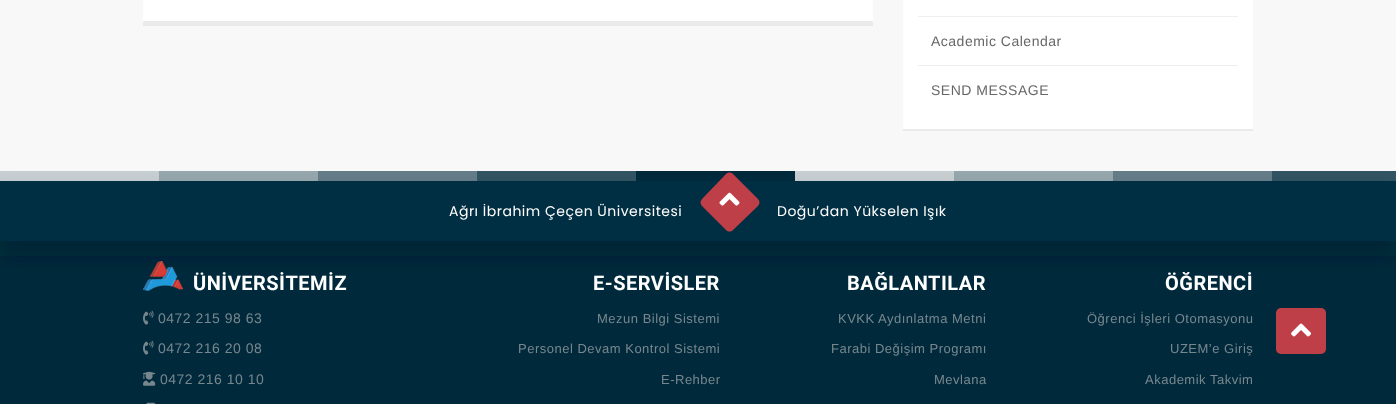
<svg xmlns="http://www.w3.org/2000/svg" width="1396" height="404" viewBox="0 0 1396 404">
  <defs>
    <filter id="blur1" x="-50%" y="-200%" width="200%" height="500%"><feGaussianBlur stdDeviation="10"/></filter>
  </defs>
  <rect width="100%" height="100%" fill="#f8f8f8"/>
  <rect x="143" y="0" width="730" height="21" fill="#ffffff"/>
  <rect x="143" y="21" width="730" height="5" fill="#eaeaea"/>
  <rect x="903" y="0" width="350" height="129" fill="#ffffff"/>
  <rect x="903" y="129" width="350" height="2" fill="#eaeaea"/>
  <rect x="918" y="16" width="320" height="1" fill="#eeeeee"/>
  <rect x="918" y="65" width="320" height="1" fill="#eeeeee"/>
  <text x="931" y="46" font-family="Liberation Sans" font-size="14" letter-spacing="0.5" fill="#666666">Academic Calendar</text>
  <text x="931" y="95" font-family="Liberation Sans" font-size="14" letter-spacing="0.5" fill="#666666">SEND MESSAGE</text>
  <rect x="0" y="241" width="1396" height="163" fill="#002a3c"/>
  <rect x="0" y="196" width="1396" height="60" fill="#011c27" fill-opacity="0.39" filter="url(#blur1)"/>
  <image x="0" y="171" width="1396" height="10" href="img1.png"/>
  <rect x="0" y="181" width="1396" height="60" fill="#002e42"/>
  <text x="449" y="216" font-family="Poppins" font-size="14" letter-spacing="0.5" fill="#ffffff">Ağrı İbrahim Çeçen Üniversitesi</text>
  <path d="M733 174L758 199C760 201 760 204 758 206L733 230C731 232 728 232 726 230L702 206C700 204 700 201 702 199L726 174C728 172 731 172 733 174Z" fill="#be3f48"/>
  <image x="719" y="192" width="21" height="14" href="img2.png"/>
  <text x="777" y="216" font-family="Poppins" font-size="14" letter-spacing="0.5" fill="#ffffff">Doğu’dan Yükselen Işık</text>
  <image x="143" y="261" width="40" height="30" href="img3.png"/>
  <text x="193" y="290" font-family="Roboto" font-size="20" font-weight="bold" letter-spacing="0.5" fill="#ffffff">ÜNİVERSİTEMİZ</text>
  <image x="143" y="310" width="11" height="15" href="img4.png"/>
  <text x="158" y="323" font-family="Liberation Sans" font-size="14" letter-spacing="0.5" fill="#78878e">0472 215 98 63</text>
  <image x="143" y="340" width="11" height="15" href="img4.png"/>
  <text x="158" y="353" font-family="Liberation Sans" font-size="14" letter-spacing="0.5" fill="#78878e">0472 216 20 08</text>
  <image x="143" y="371" width="13" height="15" href="img5.png"/>
  <text x="160" y="384" font-family="Liberation Sans" font-size="14" letter-spacing="0.5" fill="#78878e">0472 216 10 10</text>
  <image x="146" y="402" width="10" height="2" href="img6.png"/>
  <text x="593" y="290" font-family="Roboto" font-size="20" font-weight="bold" letter-spacing="0.5" fill="#ffffff">E-SERVİSLER</text>
  <text x="597" y="323" font-family="Liberation Sans" font-size="13" letter-spacing="0.5" fill="#78878e">Mezun Bilgi Sistemi</text>
  <text x="518" y="353" font-family="Liberation Sans" font-size="13" letter-spacing="0.5" fill="#78878e">Personel Devam Kontrol Sistemi</text>
  <text x="661" y="384" font-family="Liberation Sans" font-size="13" letter-spacing="0.5" fill="#78878e">E-Rehber</text>
  <text x="847" y="290" font-family="Roboto" font-size="20" font-weight="bold" letter-spacing="0.5" fill="#ffffff">BAĞLANTILAR</text>
  <text x="838" y="323" font-family="Liberation Sans" font-size="13" letter-spacing="0.5" fill="#78878e">KVKK Aydınlatma Metni</text>
  <text x="831" y="353" font-family="Liberation Sans" font-size="13" letter-spacing="0.5" fill="#78878e">Farabi Değişim Programı</text>
  <text x="934" y="384" font-family="Liberation Sans" font-size="13" letter-spacing="0.5" fill="#78878e">Mevlana</text>
  <text x="1165" y="290" font-family="Roboto" font-size="20" font-weight="bold" letter-spacing="0.5" fill="#ffffff">ÖĞRENCİ</text>
  <text x="1087" y="323" font-family="Liberation Sans" font-size="13" letter-spacing="0.5" fill="#78878e">Öğrenci İşleri Otomasyonu</text>
  <text x="1170" y="353" font-family="Liberation Sans" font-size="13" letter-spacing="0.5" fill="#78878e">UZEM’e Giriş</text>
  <text x="1145" y="384" font-family="Liberation Sans" font-size="13" letter-spacing="0.5" fill="#78878e">Akademik Takvim</text>
  <rect x="1276" y="308" width="50" height="46" rx="5" fill="#be3f48"/>
  <image x="1291" y="323" width="20" height="14" href="img7.png"/>
</svg>
